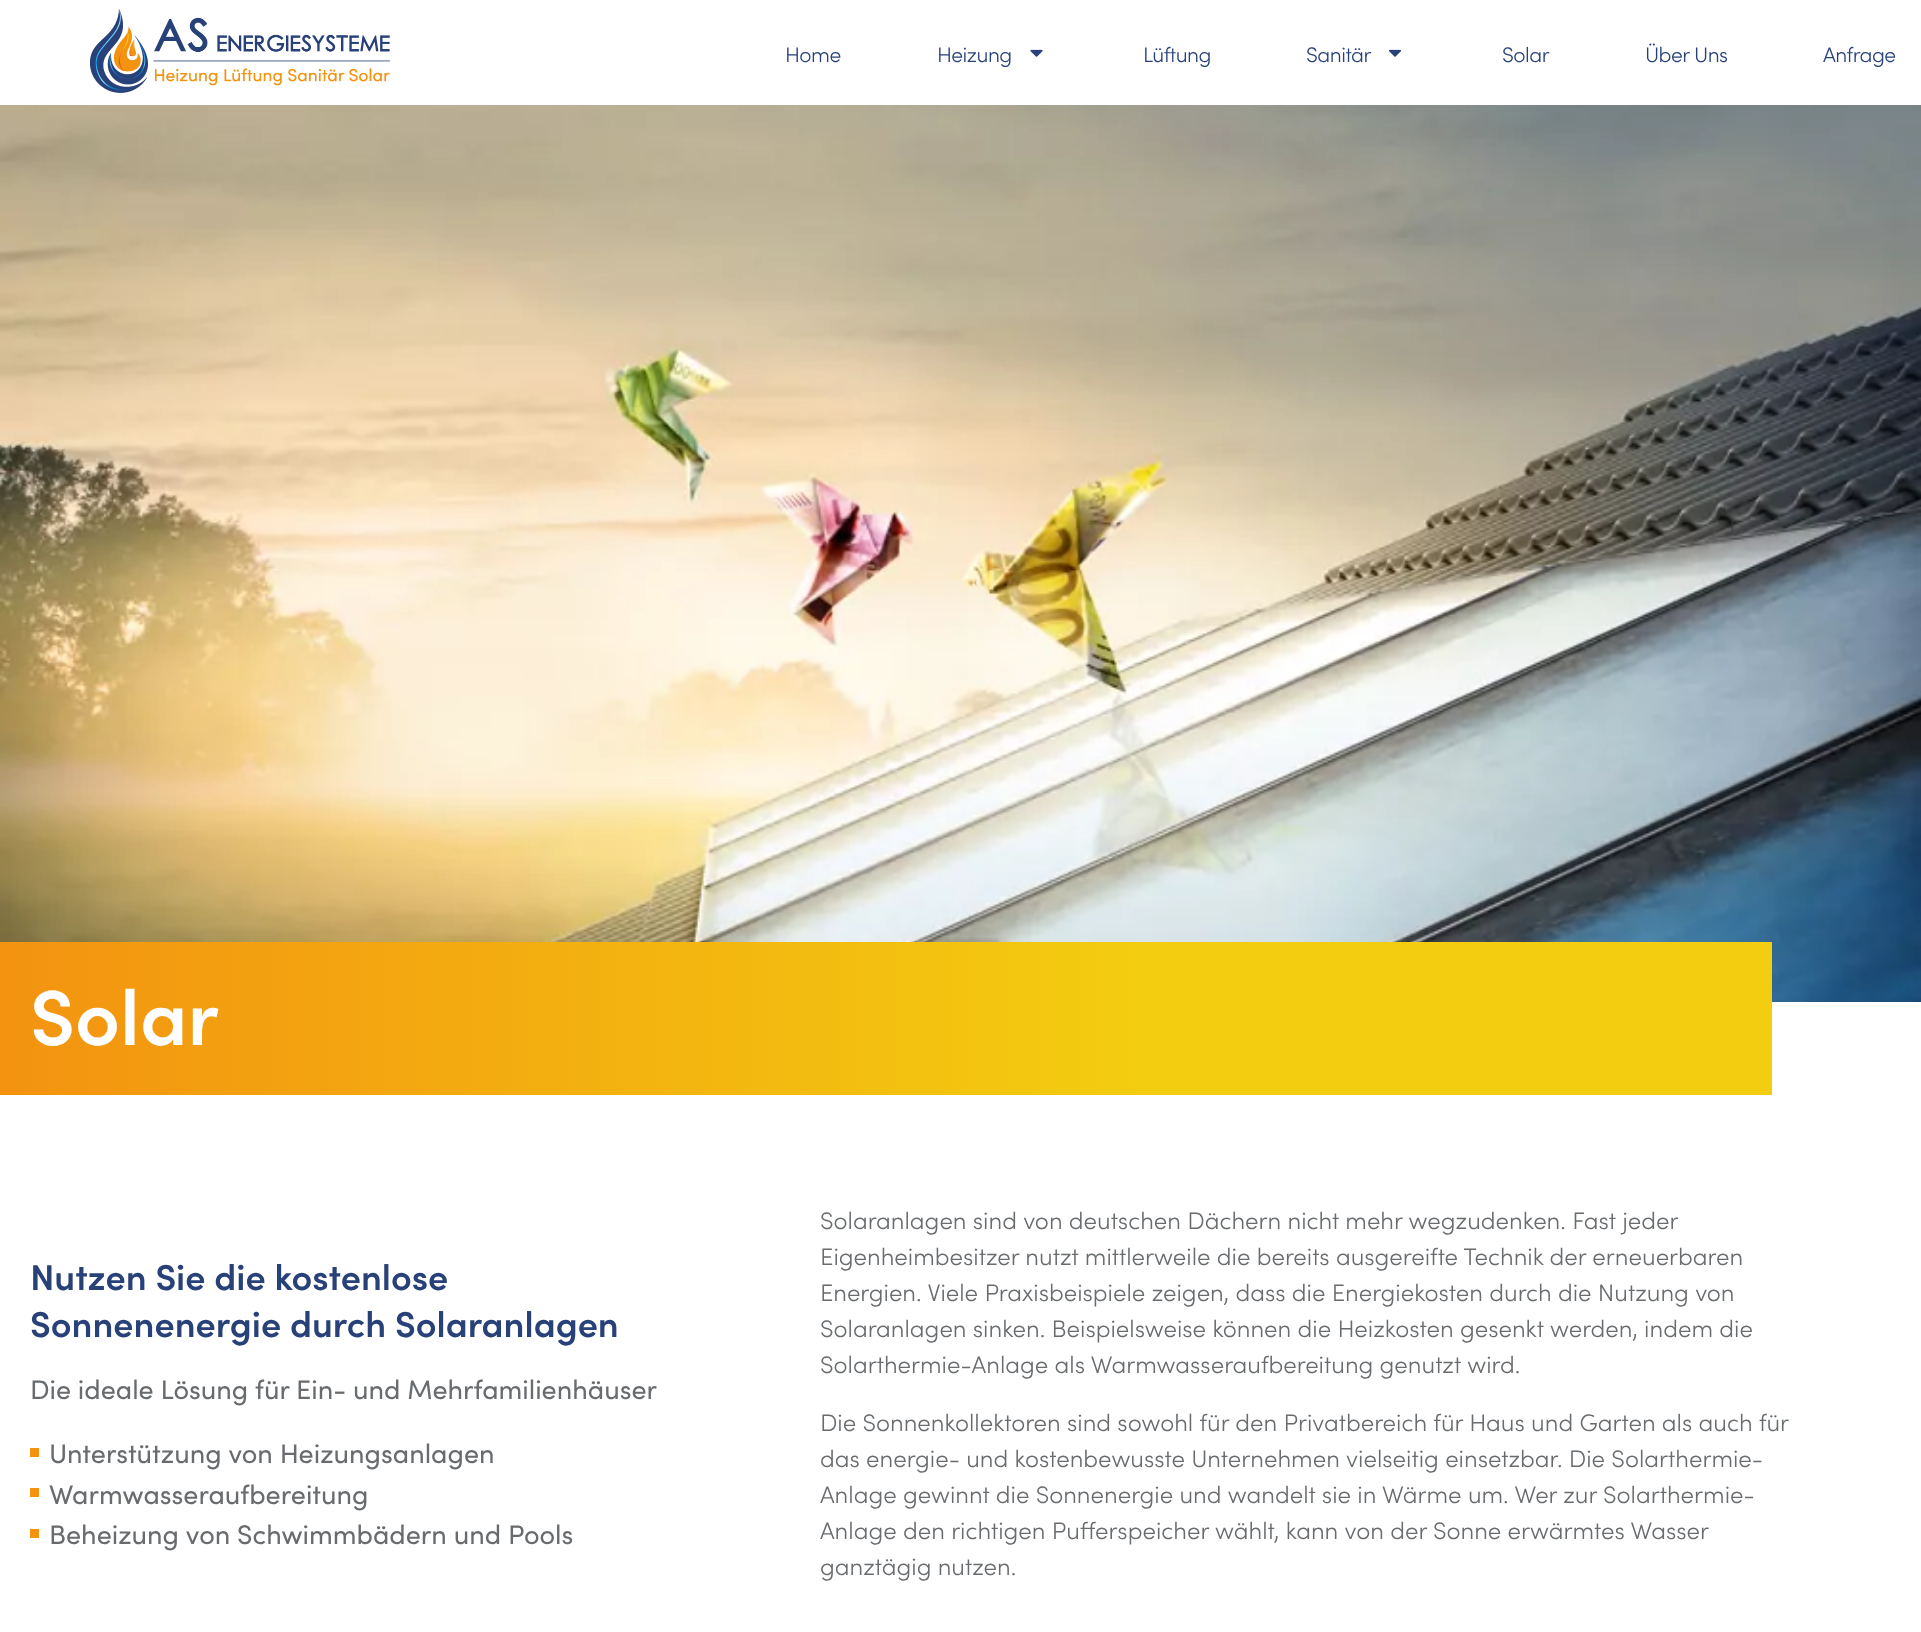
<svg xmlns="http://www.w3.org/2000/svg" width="1921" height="1632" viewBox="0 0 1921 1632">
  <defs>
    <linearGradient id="g1" gradientUnits="userSpaceOnUse" x1="0" y1="1019" x2="1772" y2="1019"><stop offset="0" stop-color="#f39310"/><stop offset="0.65" stop-color="#f3cd10"/></linearGradient>
  </defs>
  <rect width="100%" height="100%" fill="#ffffff"/>
  <image x="90" y="9" width="300" height="84" href="img1.png"/>
  <text x="785" y="62" font-family="Sofia" font-size="21" font-weight="300" letter-spacing="-0.5" fill="#284179">Home</text>
  <text x="937" y="62" font-family="Sofia" font-size="21" font-weight="300" letter-spacing="-0.5" fill="#284179">Heizung</text>
  <image x="1030" y="49" width="13" height="8" href="img2.png"/>
  <text x="1143" y="62" font-family="Sofia" font-size="21" font-weight="300" letter-spacing="-0.5" fill="#284179">Lüftung</text>
  <text x="1306" y="62" font-family="Sofia" font-size="21" font-weight="300" letter-spacing="-0.5" fill="#284179">Sanitär</text>
  <image x="1388" y="49" width="14" height="8" href="img3.png"/>
  <text x="1502" y="62" font-family="Sofia" font-size="21" font-weight="300" letter-spacing="-0.5" fill="#284179">Solar</text>
  <text x="1645" y="62" font-family="Sofia" font-size="21" font-weight="300" letter-spacing="-0.5" fill="#284179">Über Uns</text>
  <text x="1823" y="62" font-family="Sofia" font-size="21" font-weight="300" letter-spacing="-0.5" fill="#284179">Anfrage</text>
  <image x="0" y="105" width="1921" height="897" href="img4.png"/>
  <rect x="0" y="942" width="1772" height="153" fill="url(#g1)"/>
  <text x="30" y="1045" font-family="Sofia" font-size="78" font-weight="600" fill="#ffffff">Solar</text>
  <text x="30" y="1290" font-family="Sofia" font-size="36" font-weight="600" fill="#284179">Nutzen Sie die kostenlose</text>
  <text x="30" y="1337" font-family="Sofia" font-size="36" font-weight="600" fill="#284179">Sonnenenergie durch Solaranlagen</text>
  <text x="30" y="1399" font-family="Sofia" font-size="27" fill="#696c6f">Die ideale Lösung für Ein- und Mehrfamilienhäuser</text>
  <rect x="30" y="1448" width="9" height="9" fill="#f39310"/>
  <text x="49" y="1463" font-family="Sofia" font-size="27" fill="#696c6f">Unterstützung von Heizungsanlagen</text>
  <rect x="30" y="1488" width="9" height="9" fill="#f39310"/>
  <text x="49" y="1504" font-family="Sofia" font-size="27" fill="#696c6f">Warmwasseraufbereitung</text>
  <rect x="30" y="1529" width="9" height="9" fill="#f39310"/>
  <text x="49" y="1544" font-family="Sofia" font-size="27" fill="#696c6f">Beheizung von Schwimmbädern und Pools</text>
  <text x="820" y="1229" font-family="Sofia" font-size="24" font-weight="300" fill="#696c6f">Solaranlagen sind von deutschen Dächern nicht mehr wegzudenken. Fast jeder</text>
  <text x="820" y="1265" font-family="Sofia" font-size="24" font-weight="300" fill="#696c6f">Eigenheimbesitzer nutzt mittlerweile die bereits ausgereifte Technik der erneuerbaren</text>
  <text x="820" y="1301" font-family="Sofia" font-size="24" font-weight="300" fill="#696c6f">Energien. Viele Praxisbeispiele zeigen, dass die Energiekosten durch die Nutzung von</text>
  <text x="820" y="1337" font-family="Sofia" font-size="24" font-weight="300" fill="#696c6f">Solaranlagen sinken. Beispielsweise können die Heizkosten gesenkt werden, indem die</text>
  <text x="820" y="1373" font-family="Sofia" font-size="24" font-weight="300" fill="#696c6f">Solarthermie-Anlage als Warmwasseraufbereitung genutzt wird.</text>
  <text x="820" y="1431" font-family="Sofia" font-size="24" font-weight="300" fill="#696c6f">Die Sonnenkollektoren sind sowohl für den Privatbereich für Haus und Garten als auch für</text>
  <text x="820" y="1467" font-family="Sofia" font-size="24" font-weight="300" fill="#696c6f">das energie- und kostenbewusste Unternehmen vielseitig einsetzbar. Die Solarthermie-</text>
  <text x="820" y="1503" font-family="Sofia" font-size="24" font-weight="300" fill="#696c6f">Anlage gewinnt die Sonnenergie und wandelt sie in Wärme um. Wer zur Solarthermie-</text>
  <text x="820" y="1539" font-family="Sofia" font-size="24" font-weight="300" fill="#696c6f">Anlage den richtigen Pufferspeicher wählt, kann von der Sonne erwärmtes Wasser</text>
  <text x="820" y="1575" font-family="Sofia" font-size="24" font-weight="300" fill="#696c6f">ganztägig nutzen.</text>
</svg>
